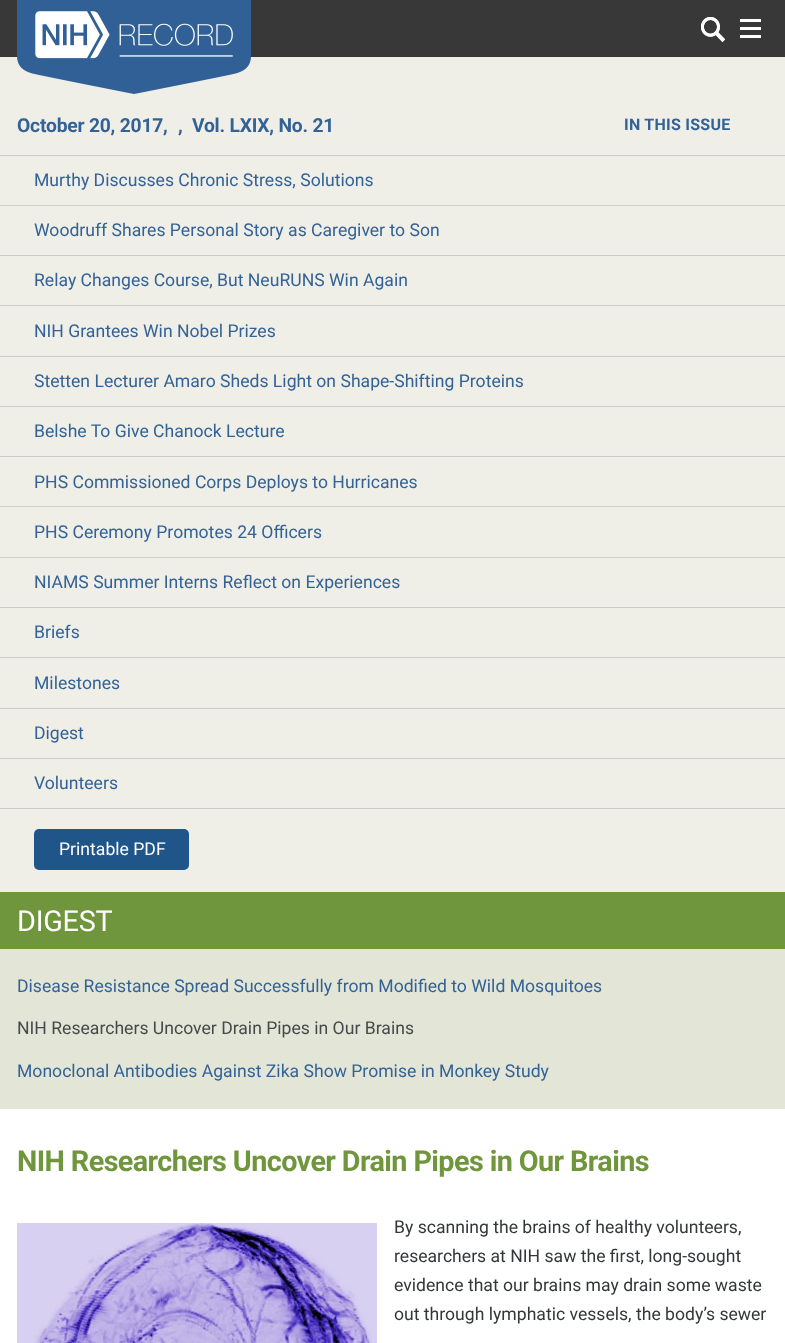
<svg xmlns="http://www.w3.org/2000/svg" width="785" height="1343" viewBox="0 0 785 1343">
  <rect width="100%" height="100%" fill="#383838"/>
  <rect x="0" y="57" width="785" height="835" fill="#efefe8"/>
  <image x="17" y="0" width="234" height="94" href="img1.png"/>
  <image x="701" y="17" width="24" height="25" href="img2.png"/>
  <image x="701" y="17" width="24" height="25" href="img3.png"/>
  <image x="740" y="19" width="21" height="19" href="img4.png"/>
  <text x="17" y="132" font-family="Roboto" font-size="19.25" font-weight="bold" letter-spacing="-0.2" fill="#336296">October 20, 2017,</text>
  <text x="178" y="132" font-family="Roboto" font-size="19.25" font-weight="bold" letter-spacing="-0.2" fill="#336296">,</text>
  <text x="192" y="132" font-family="Roboto" font-size="19.25" font-weight="bold" letter-spacing="-0.2" fill="#336296">Vol. LXIX, No. 21</text>
  <rect x="0" y="155" width="785" height="1" fill="#cccccc"/>
  <text x="34" y="186" font-family="Roboto" font-size="17.6" fill="#336296">Murthy Discusses Chronic Stress, Solutions</text>
  <rect x="0" y="205" width="785" height="1" fill="#cccccc"/>
  <text x="34" y="236" font-family="Roboto" font-size="17.6" fill="#336296">Woodruff Shares Personal Story as Caregiver to Son</text>
  <rect x="0" y="255" width="785" height="1" fill="#cccccc"/>
  <text x="34" y="286" font-family="Roboto" font-size="17.6" fill="#336296">Relay Changes Course, But NeuRUNS Win Again</text>
  <rect x="0" y="305" width="785" height="1" fill="#cccccc"/>
  <text x="34" y="337" font-family="Roboto" font-size="17.6" fill="#336296">NIH Grantees Win Nobel Prizes</text>
  <rect x="0" y="356" width="785" height="1" fill="#cccccc"/>
  <text x="34" y="387" font-family="Roboto" font-size="17.6" fill="#336296">Stetten Lecturer Amaro Sheds Light on Shape-Shifting Proteins</text>
  <rect x="0" y="406" width="785" height="1" fill="#cccccc"/>
  <text x="34" y="437" font-family="Roboto" font-size="17.6" fill="#336296">Belshe To Give Chanock Lecture</text>
  <rect x="0" y="456" width="785" height="1" fill="#cccccc"/>
  <text x="34" y="488" font-family="Roboto" font-size="17.6" fill="#336296">PHS Commissioned Corps Deploys to Hurricanes</text>
  <rect x="0" y="506" width="785" height="1" fill="#cccccc"/>
  <text x="34" y="538" font-family="Roboto" font-size="17.6" fill="#336296">PHS Ceremony Promotes 24 Officers</text>
  <rect x="0" y="557" width="785" height="1" fill="#cccccc"/>
  <text x="34" y="588" font-family="Roboto" font-size="17.6" fill="#336296">NIAMS Summer Interns Reflect on Experiences</text>
  <rect x="0" y="607" width="785" height="1" fill="#cccccc"/>
  <text x="34" y="638" font-family="Roboto" font-size="17.6" fill="#336296">Briefs</text>
  <rect x="0" y="657" width="785" height="1" fill="#cccccc"/>
  <text x="34" y="689" font-family="Roboto" font-size="17.6" fill="#336296">Milestones</text>
  <rect x="0" y="708" width="785" height="1" fill="#cccccc"/>
  <text x="34" y="739" font-family="Roboto" font-size="17.6" fill="#336296">Digest</text>
  <rect x="0" y="758" width="785" height="1" fill="#cccccc"/>
  <text x="34" y="789" font-family="Roboto" font-size="17.6" fill="#336296">Volunteers</text>
  <rect x="0" y="808" width="785" height="1" fill="#cccccc"/>
  <rect x="34" y="829" width="155" height="41" rx="5" fill="#20558a"/>
  <text x="59" y="855" font-family="Roboto" font-size="17.6" fill="#ffffff">Printable PDF</text>
  <text x="624" y="130" font-family="Roboto" font-size="16" font-weight="bold" letter-spacing="0.25" fill="#336296">IN THIS ISSUE</text>
  <rect x="0" y="1109" width="785" height="234" fill="#ffffff"/>
  <rect x="0" y="949" width="785" height="160" fill="#e3e6d6"/>
  <rect x="0" y="892" width="785" height="57" fill="#70963d"/>
  <text x="17" y="931" font-family="Roboto" font-size="28.8" letter-spacing="-0.25" fill="#ffffff">DIGEST</text>
  <text x="17" y="992" font-family="Roboto" font-size="17.6" fill="#336296">Disease Resistance Spread Successfully from Modified to Wild Mosquitoes</text>
  <text x="17" y="1034" font-family="Roboto" font-size="17.6" fill="#46494c">NIH Researchers Uncover Drain Pipes in Our Brains</text>
  <text x="17" y="1077" font-family="Roboto" font-size="17.6" fill="#336296">Monoclonal Antibodies Against Zika Show Promise in Monkey Study</text>
  <text x="17" y="1171" font-family="Roboto" font-size="28.8" font-weight="bold" letter-spacing="-0.6" fill="#70963d">NIH Researchers Uncover Drain Pipes in Our Brains</text>
  <image x="17" y="1223" width="360" height="120" href="img5.png"/>
  <text x="394" y="1233" font-family="Roboto" font-size="17.6" fill="#34373a">By scanning the brains of healthy volunteers,</text>
  <text x="394" y="1262" font-family="Roboto" font-size="17.6" fill="#34373a">researchers at NIH saw the first, long-sought</text>
  <text x="394" y="1291" font-family="Roboto" font-size="17.6" fill="#34373a">evidence that our brains may drain some waste</text>
  <text x="394" y="1320" font-family="Roboto" font-size="17.6" fill="#34373a">out through lymphatic vessels, the body’s sewer</text>
</svg>
